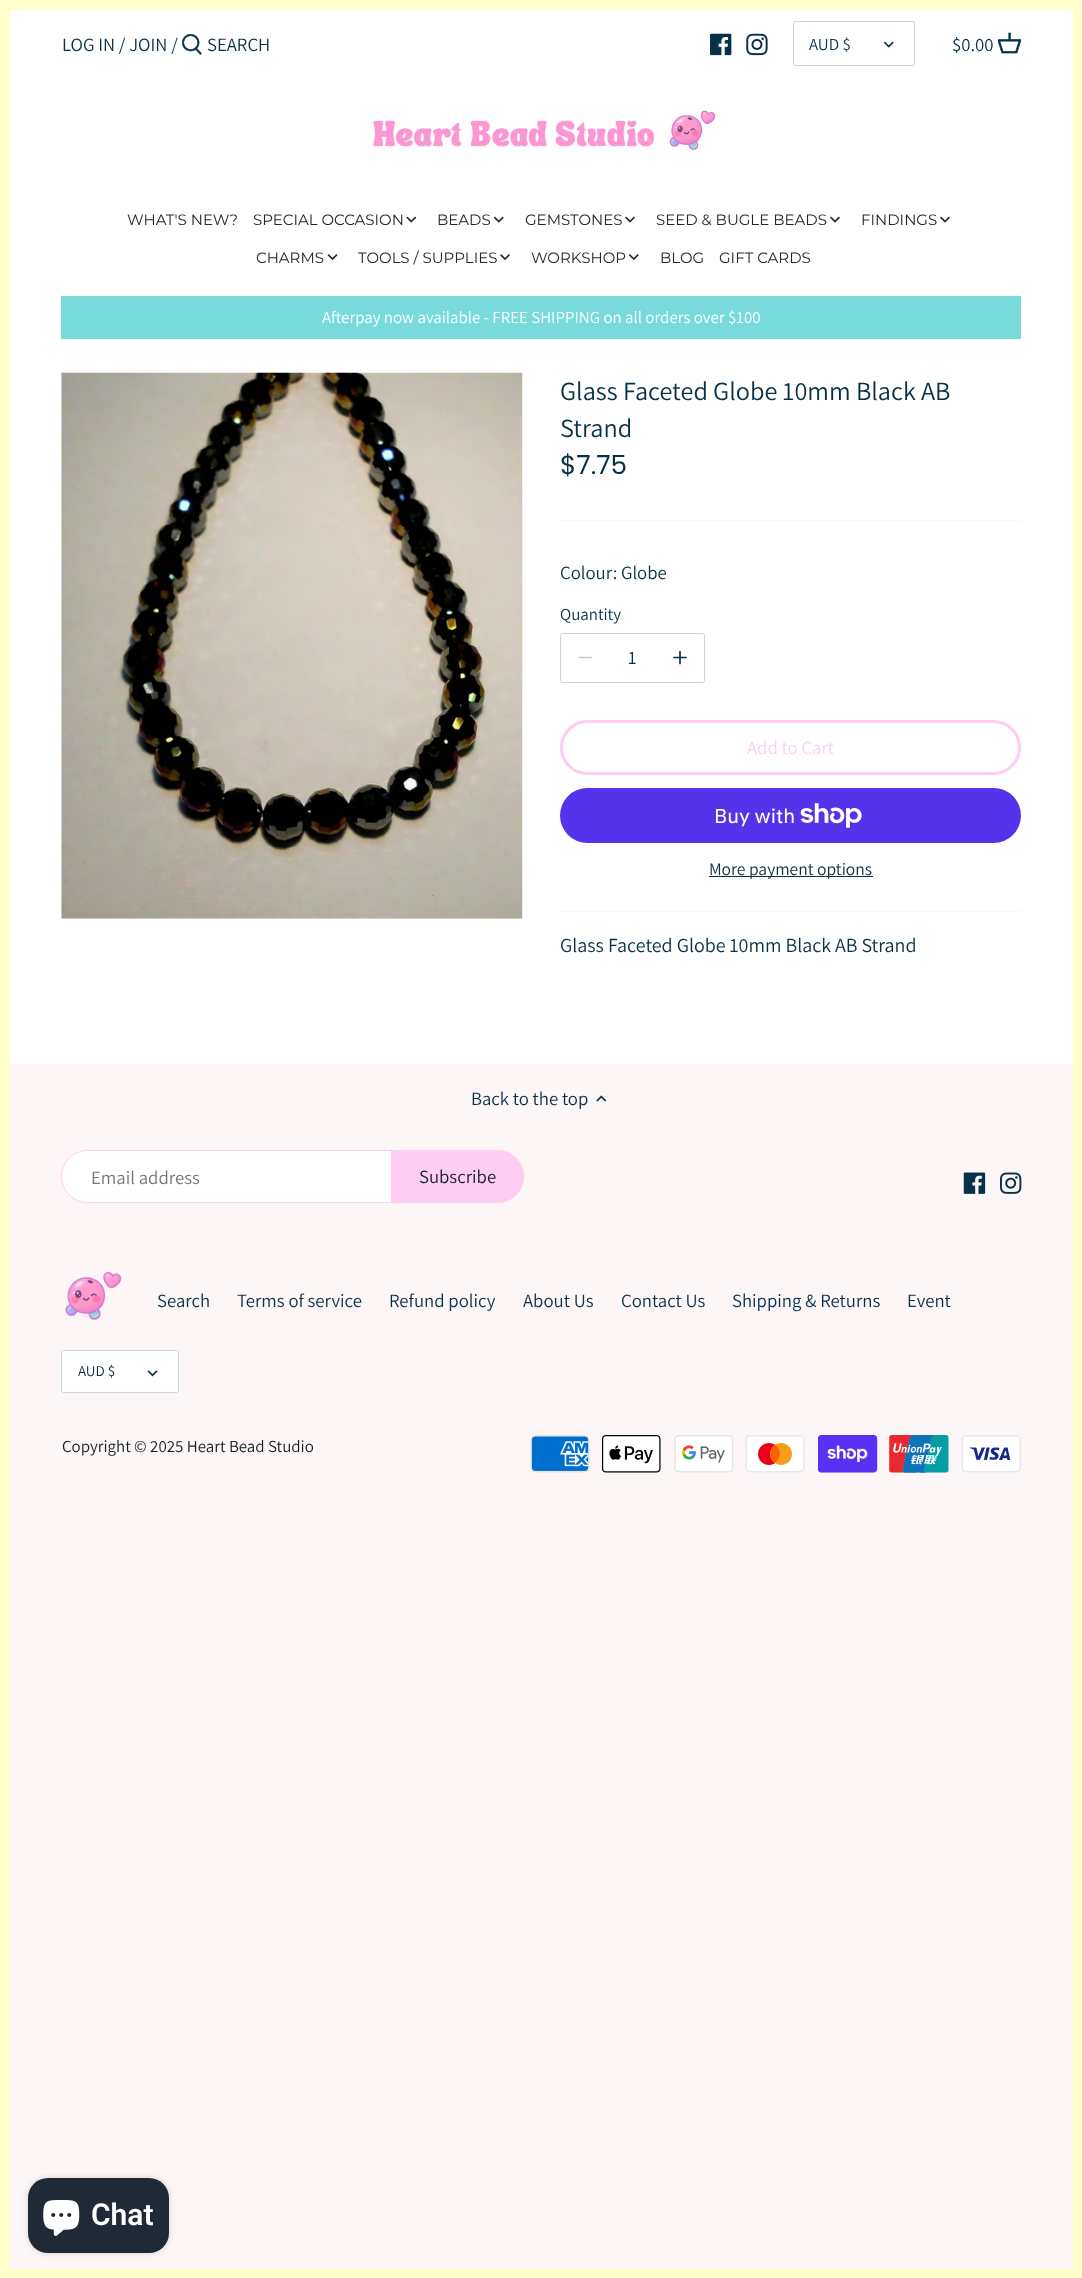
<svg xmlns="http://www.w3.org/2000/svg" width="1082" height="2278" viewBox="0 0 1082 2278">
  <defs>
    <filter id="blur1" x="-50%" y="-200%" width="200%" height="500%"><feGaussianBlur stdDeviation="3"/></filter>
  </defs>
  <rect width="100%" height="100%" fill="#fdf6f7"/>
  <rect x="5" y="5" width="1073" height="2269" fill="none" stroke="#feffcd" stroke-width="10"/>
  <rect x="10" y="10" width="1063" height="1054" fill="#ffffff"/>
  <text x="62" y="51" font-family="Assistant" font-size="18.75" fill="#063148">LOG IN / JOIN /</text>
  <image x="182" y="34" width="20" height="21" href="img1.png"/>
  <text x="207" y="51" font-family="Assistant" font-size="18.75" fill="#063148">SEARCH</text>
  <image x="710" y="33" width="22" height="23" href="img2.png"/>
  <image x="746" y="33" width="22" height="23" href="img3.png"/>
  <rect x="793.5" y="21.5" width="121" height="44" rx="2" fill="none" stroke="#cbd4d9"/>
  <text x="809" y="50" font-family="Assistant" font-size="16.9" fill="#063148">AUD $</text>
  <image x="883" y="41" width="11" height="7" href="img4.png"/>
  <text x="952" y="51" font-family="Assistant" font-size="18.75" fill="#063148">$0.00</text>
  <image x="998" y="32" width="23" height="22" href="img5.png"/>
  <image x="371" y="108" width="348" height="45" href="img6.png"/>
  <text x="127" y="225" font-family="Montserrat" font-size="15" fill="#262630">WHAT'S NEW?</text>
  <text x="253" y="225" font-family="Montserrat" font-size="15" fill="#262630">SPECIAL OCCASION</text>
  <image x="406" y="216" width="11" height="7" href="img7.png"/>
  <text x="437" y="225" font-family="Montserrat" font-size="15" fill="#262630">BEADS</text>
  <image x="493" y="216" width="11" height="7" href="img8.png"/>
  <text x="525" y="225" font-family="Montserrat" font-size="15" fill="#262630">GEMSTONES</text>
  <image x="625" y="216" width="10" height="7" href="img9.png"/>
  <text x="656" y="225" font-family="Montserrat" font-size="15" fill="#262630">SEED &amp; BUGLE BEADS</text>
  <image x="830" y="216" width="10" height="7" href="img9.png"/>
  <text x="861" y="225" font-family="Montserrat" font-size="15" fill="#262630">FINDINGS</text>
  <image x="940" y="216" width="10" height="7" href="img9.png"/>
  <text x="256" y="263" font-family="Montserrat" font-size="15" fill="#262630">CHARMS</text>
  <image x="327" y="254" width="11" height="7" href="img10.png"/>
  <text x="358" y="263" font-family="Montserrat" font-size="15" fill="#262630">TOOLS / SUPPLIES</text>
  <image x="500" y="254" width="10" height="6" href="img11.png"/>
  <text x="531" y="263" font-family="Montserrat" font-size="15" fill="#262630">WORKSHOP</text>
  <image x="628" y="254" width="11" height="7" href="img12.png"/>
  <text x="660" y="263" font-family="Montserrat" font-size="15" fill="#262630">BLOG</text>
  <text x="719" y="263" font-family="Montserrat" font-size="15" fill="#262630">GIFT CARDS</text>
  <rect x="61" y="296" width="960" height="43" fill="#78dadb"/>
  <text x="322" y="323" font-family="Assistant" font-size="16.9" fill="#ffffff">Afterpay now available - FREE SHIPPING on all orders over $100</text>
  <image x="61" y="372" width="462" height="547" href="img13.png"/>
  <rect x="560" y="520" width="461" height="1" fill="#fdf6f7"/>
  <text x="560" y="400" font-family="Assistant" font-size="26.25" fill="#063148">Glass Faceted Globe 10mm Black AB</text>
  <text x="560" y="437" font-family="Assistant" font-size="26.25" fill="#063148">Strand</text>
  <text x="560" y="474" font-family="Poppins" font-size="26.25" fill="#063148">$7.75</text>
  <rect x="560" y="911" width="461" height="1" fill="#fdf6f7"/>
  <text x="560" y="579" font-family="Assistant" font-size="18.75" fill="#063148">Colour: Globe</text>
  <text x="560" y="620" font-family="Assistant" font-size="16.9" fill="#063148">Quantity</text>
  <rect x="560.5" y="633.5" width="144" height="49" rx="2" fill="none" stroke="#cbd4d9"/>
  <path d="M579 657.5H591" fill="none" stroke="#c1ccd1" stroke-width="1.7" stroke-linecap="round" stroke-linejoin="round"/>
  <text x="628" y="664" font-family="Assistant" font-size="18.75" fill="#063148">1</text>
  <path d="M680 651.5V663.5M674 657.5H686" fill="none" stroke="#063148" stroke-width="1.7" stroke-linecap="round" stroke-linejoin="round"/>
  <rect x="561.5" y="721.5" width="458" height="52" rx="26" fill="none" stroke="#ffcdf1" stroke-width="3"/>
  <text x="747" y="754" font-family="Assistant" font-size="18.75" fill="#ffcdf1">Add to Cart</text>
  <rect x="560" y="788" width="461" height="55" rx="27.5" fill="#5433eb"/>
  <text x="714" y="823" font-family="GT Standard" font-size="20" fill="#ffffff">Buy with</text>
  <image x="800" y="803" width="62" height="25" href="img14.png"/>
  <rect x="709" y="876" width="164" height="1" fill="#063148"/>
  <text x="709" y="875" font-family="Assistant" font-size="17.5" fill="#063148">More payment options</text>
  <text x="560" y="952" font-family="Assistant" font-size="20" fill="#063148">Glass Faceted Globe 10mm Black AB Strand</text>
  <text x="471" y="1105" font-family="Assistant" font-size="18.75" fill="#063148">Back to the top</text>
  <image x="596" y="1095" width="11" height="7" href="img15.png"/>
  <rect x="61.5" y="1150.5" width="461" height="52" rx="26" fill="#ffffff" stroke="#ffcdf1"/>
  <text x="91" y="1184" font-family="Assistant" font-size="18.75" fill="#757575">Email address</text>
  <path d="M391.5 1150.5H497.5C512 1150.5 523.5 1162 523.5 1176.5C523.5 1191 512 1202.5 497.5 1202.5H391.5Z" fill="#ffcdf1" stroke="#ffcdf1"/>
  <text x="419" y="1183" font-family="Assistant" font-size="18.75" fill="#121e28">Subscribe</text>
  <image x="963" y="1172" width="23" height="22" href="img16.png"/>
  <image x="1000" y="1172" width="22" height="22" href="img17.png"/>
  <image x="65" y="1271" width="57" height="50" href="img18.png"/>
  <text x="157" y="1307" font-family="Assistant" font-size="18.75" fill="#063148">Search</text>
  <text x="237" y="1307" font-family="Assistant" font-size="18.75" fill="#063148">Terms of service</text>
  <text x="389" y="1307" font-family="Assistant" font-size="18.75" fill="#063148">Refund policy</text>
  <text x="523" y="1307" font-family="Assistant" font-size="18.75" fill="#063148">About Us</text>
  <text x="621" y="1307" font-family="Assistant" font-size="18.75" fill="#063148">Contact Us</text>
  <text x="732" y="1307" font-family="Assistant" font-size="18.75" fill="#063148">Shipping &amp; Returns</text>
  <text x="907" y="1307" font-family="Assistant" font-size="18.75" fill="#063148">Event</text>
  <rect x="61.5" y="1350.5" width="117" height="42" rx="2" fill="#ffffff" stroke="#cbd4d9"/>
  <text x="78" y="1376" font-family="Assistant" font-size="15" fill="#063148">AUD $</text>
  <image x="147" y="1370" width="11" height="7" href="img19.png"/>
  <text x="62" y="1452" font-family="Assistant" font-size="16.9" fill="#121e28">Copyright © 2025 Heart Bead Studio</text>
  <image x="530" y="1435" width="60" height="38" href="img20.png"/>
  <image x="601" y="1435" width="60" height="38" href="img21.png"/>
  <image x="674" y="1435" width="60" height="38" href="img22.png"/>
  <image x="745" y="1435" width="60" height="38" href="img23.png"/>
  <image x="818" y="1435" width="60" height="38" href="img24.png"/>
  <image x="889" y="1435" width="60" height="38" href="img25.png"/>
  <image x="961" y="1435" width="60" height="38" href="img26.png"/>
  <rect x="28" y="2178" width="141" height="75" rx="20" fill="#000000" fill-opacity="0.15" filter="url(#blur1)"/>
  <rect x="28" y="2178" width="141" height="75" rx="20" fill="#202a36"/>
  <image x="43" y="2200" width="37" height="36" href="img27.png"/>
  <text x="91" y="2225" font-family="Roboto" font-size="30" font-weight="600" fill="#ffffff">Chat</text>
</svg>
